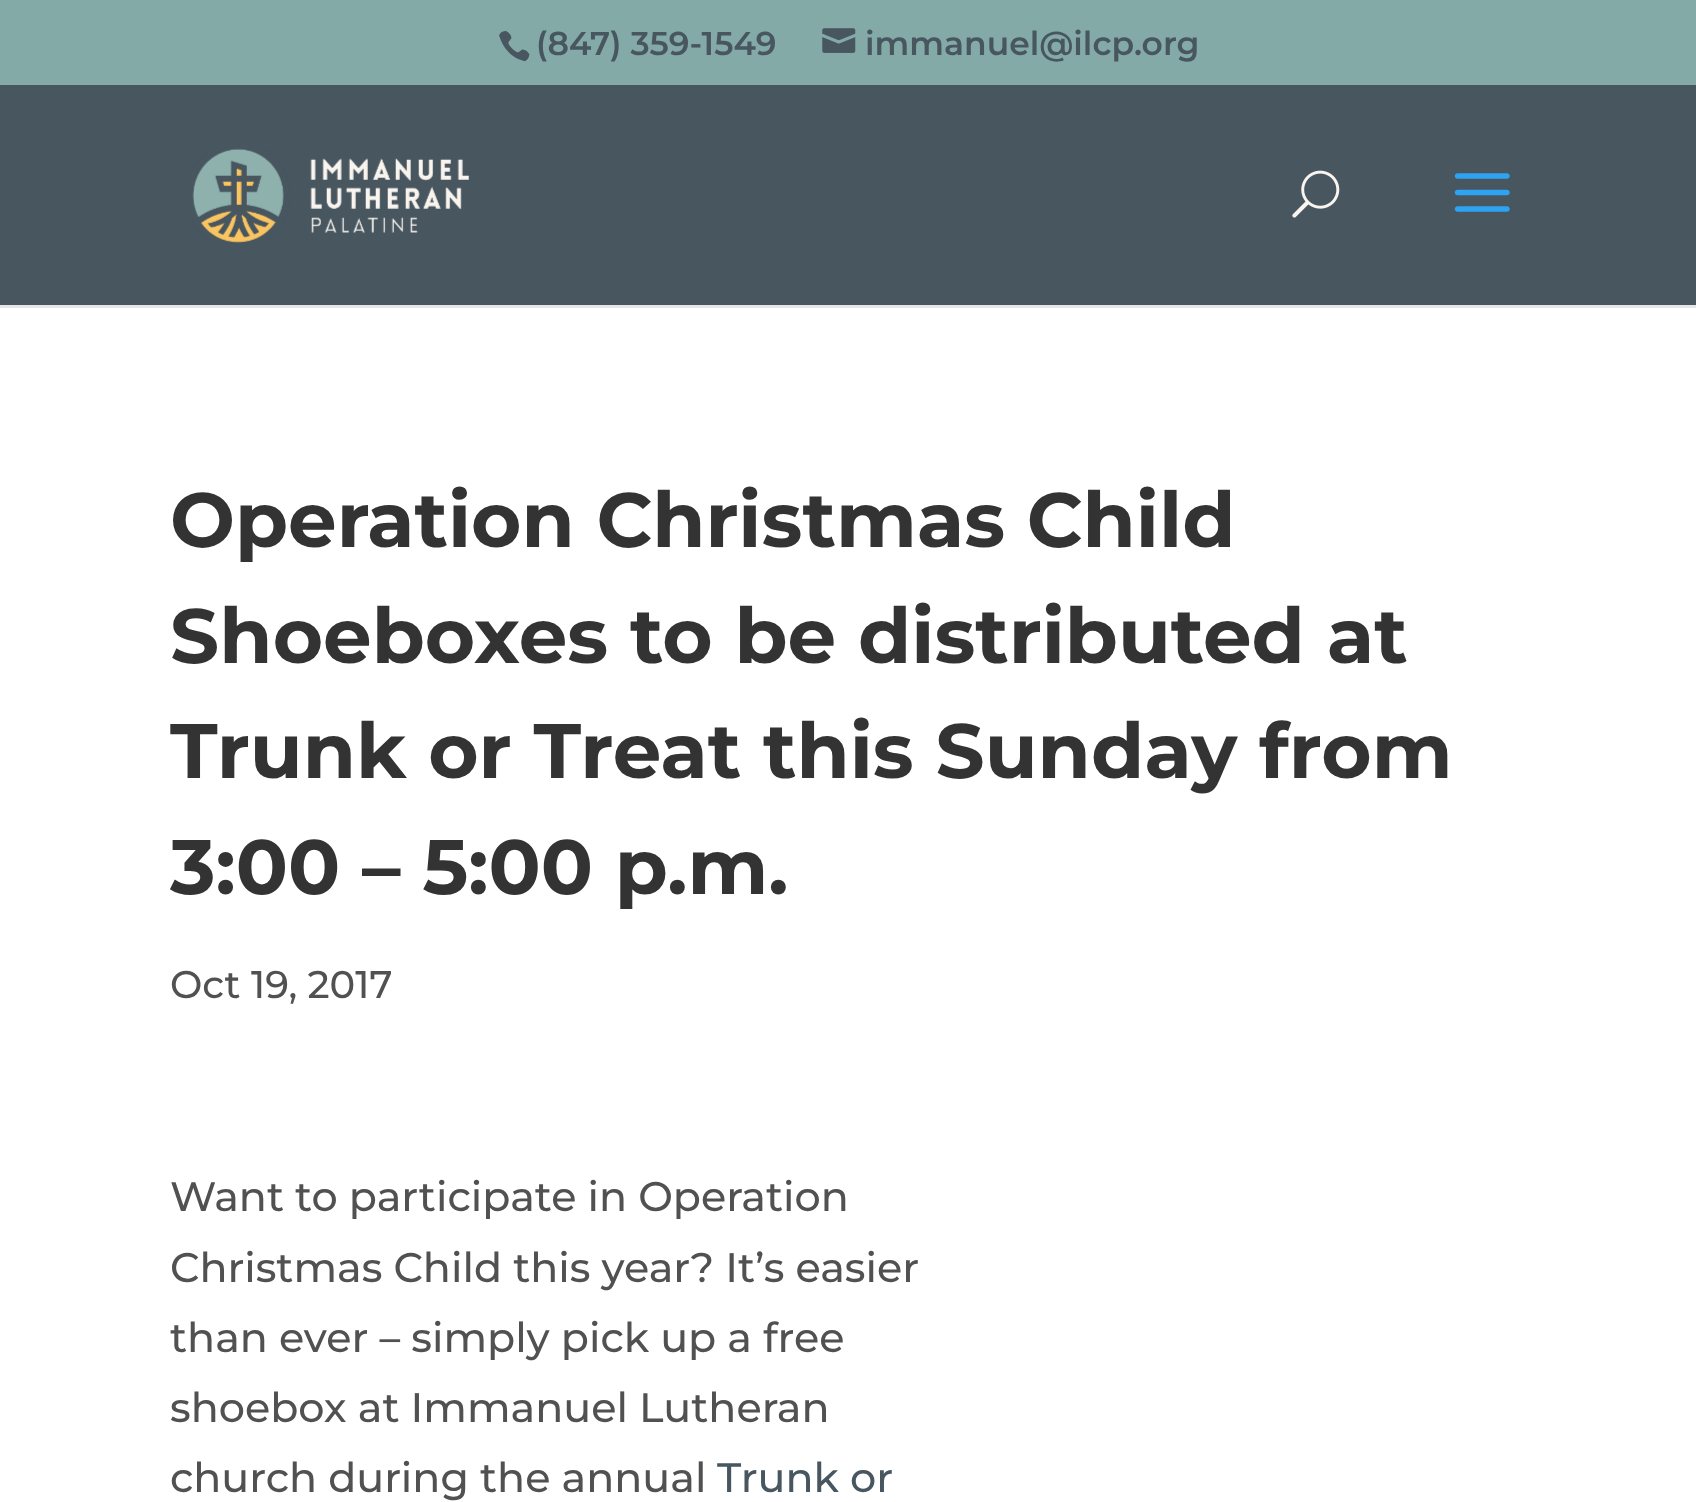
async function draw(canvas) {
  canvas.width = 1696;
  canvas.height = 1502;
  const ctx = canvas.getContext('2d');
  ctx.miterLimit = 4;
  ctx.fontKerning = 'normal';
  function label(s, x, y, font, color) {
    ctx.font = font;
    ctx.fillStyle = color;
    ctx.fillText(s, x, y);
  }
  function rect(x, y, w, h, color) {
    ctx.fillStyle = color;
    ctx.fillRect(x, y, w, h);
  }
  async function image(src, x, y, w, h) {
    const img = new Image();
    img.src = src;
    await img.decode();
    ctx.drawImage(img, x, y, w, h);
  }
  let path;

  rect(0, 0, 1696, 1502, '#fff');
  rect(0, 0, 1696, 85, '#84aaa7');
  await image('assets/img1.png', 499, 31, 31, 31);
  label('(847) 359-1549', 536, 55, '600 33px Montserrat', '#485660');
  await image('assets/img2.png', 822, 28, 34, 25);
  label('immanuel@ilcp.org', 865, 55, '600 33px Montserrat', '#485660');
  ctx.fillStyle = '#e6e6e6';
  path = new Path2D('M0 305V308H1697V88V305Z');
  ctx.fill(path);
  rect(0, 85, 1696, 220, '#485660');
  await image('assets/img3.png', 192, 148, 278, 95);
  await image('assets/img4.png', 1292, 170, 48, 48);
  await image('assets/img5.png', 1454, 173, 56, 39);
  label('Operation Christmas Child', 170, 547, 'bold 77px Montserrat', '#333');
  label('Shoeboxes to be distributed at', 170, 663, 'bold 77px Montserrat', '#333');
  label('Trunk or Treat this Sunday from', 170, 778, 'bold 77px Montserrat', '#333');
  label('3:00 – 5:00 p.m.', 170, 894, 'bold 77px Montserrat', '#333');
  label('Oct 19, 2017', 170, 998, '500 38.5px Montserrat', '#515151');
  label('Want to participate in Operation', 170, 1211, '500 41.25px Montserrat', '#515151');
  label('Christmas Child this year? It’s easier', 170, 1282, '500 41.25px Montserrat', '#515151');
  label('than ever – simply pick up a free', 170, 1352, '500 41.25px Montserrat', '#515151');
  label('shoebox at Immanuel Lutheran', 170, 1422, '500 41.25px Montserrat', '#515151');
  label('church during the annual', 170, 1492, '500 41.25px Montserrat', '#515151');
  label('Trunk or', 717, 1492, '500 41.25px Montserrat', '#485660');
}

draw(document.querySelector('canvas'));
